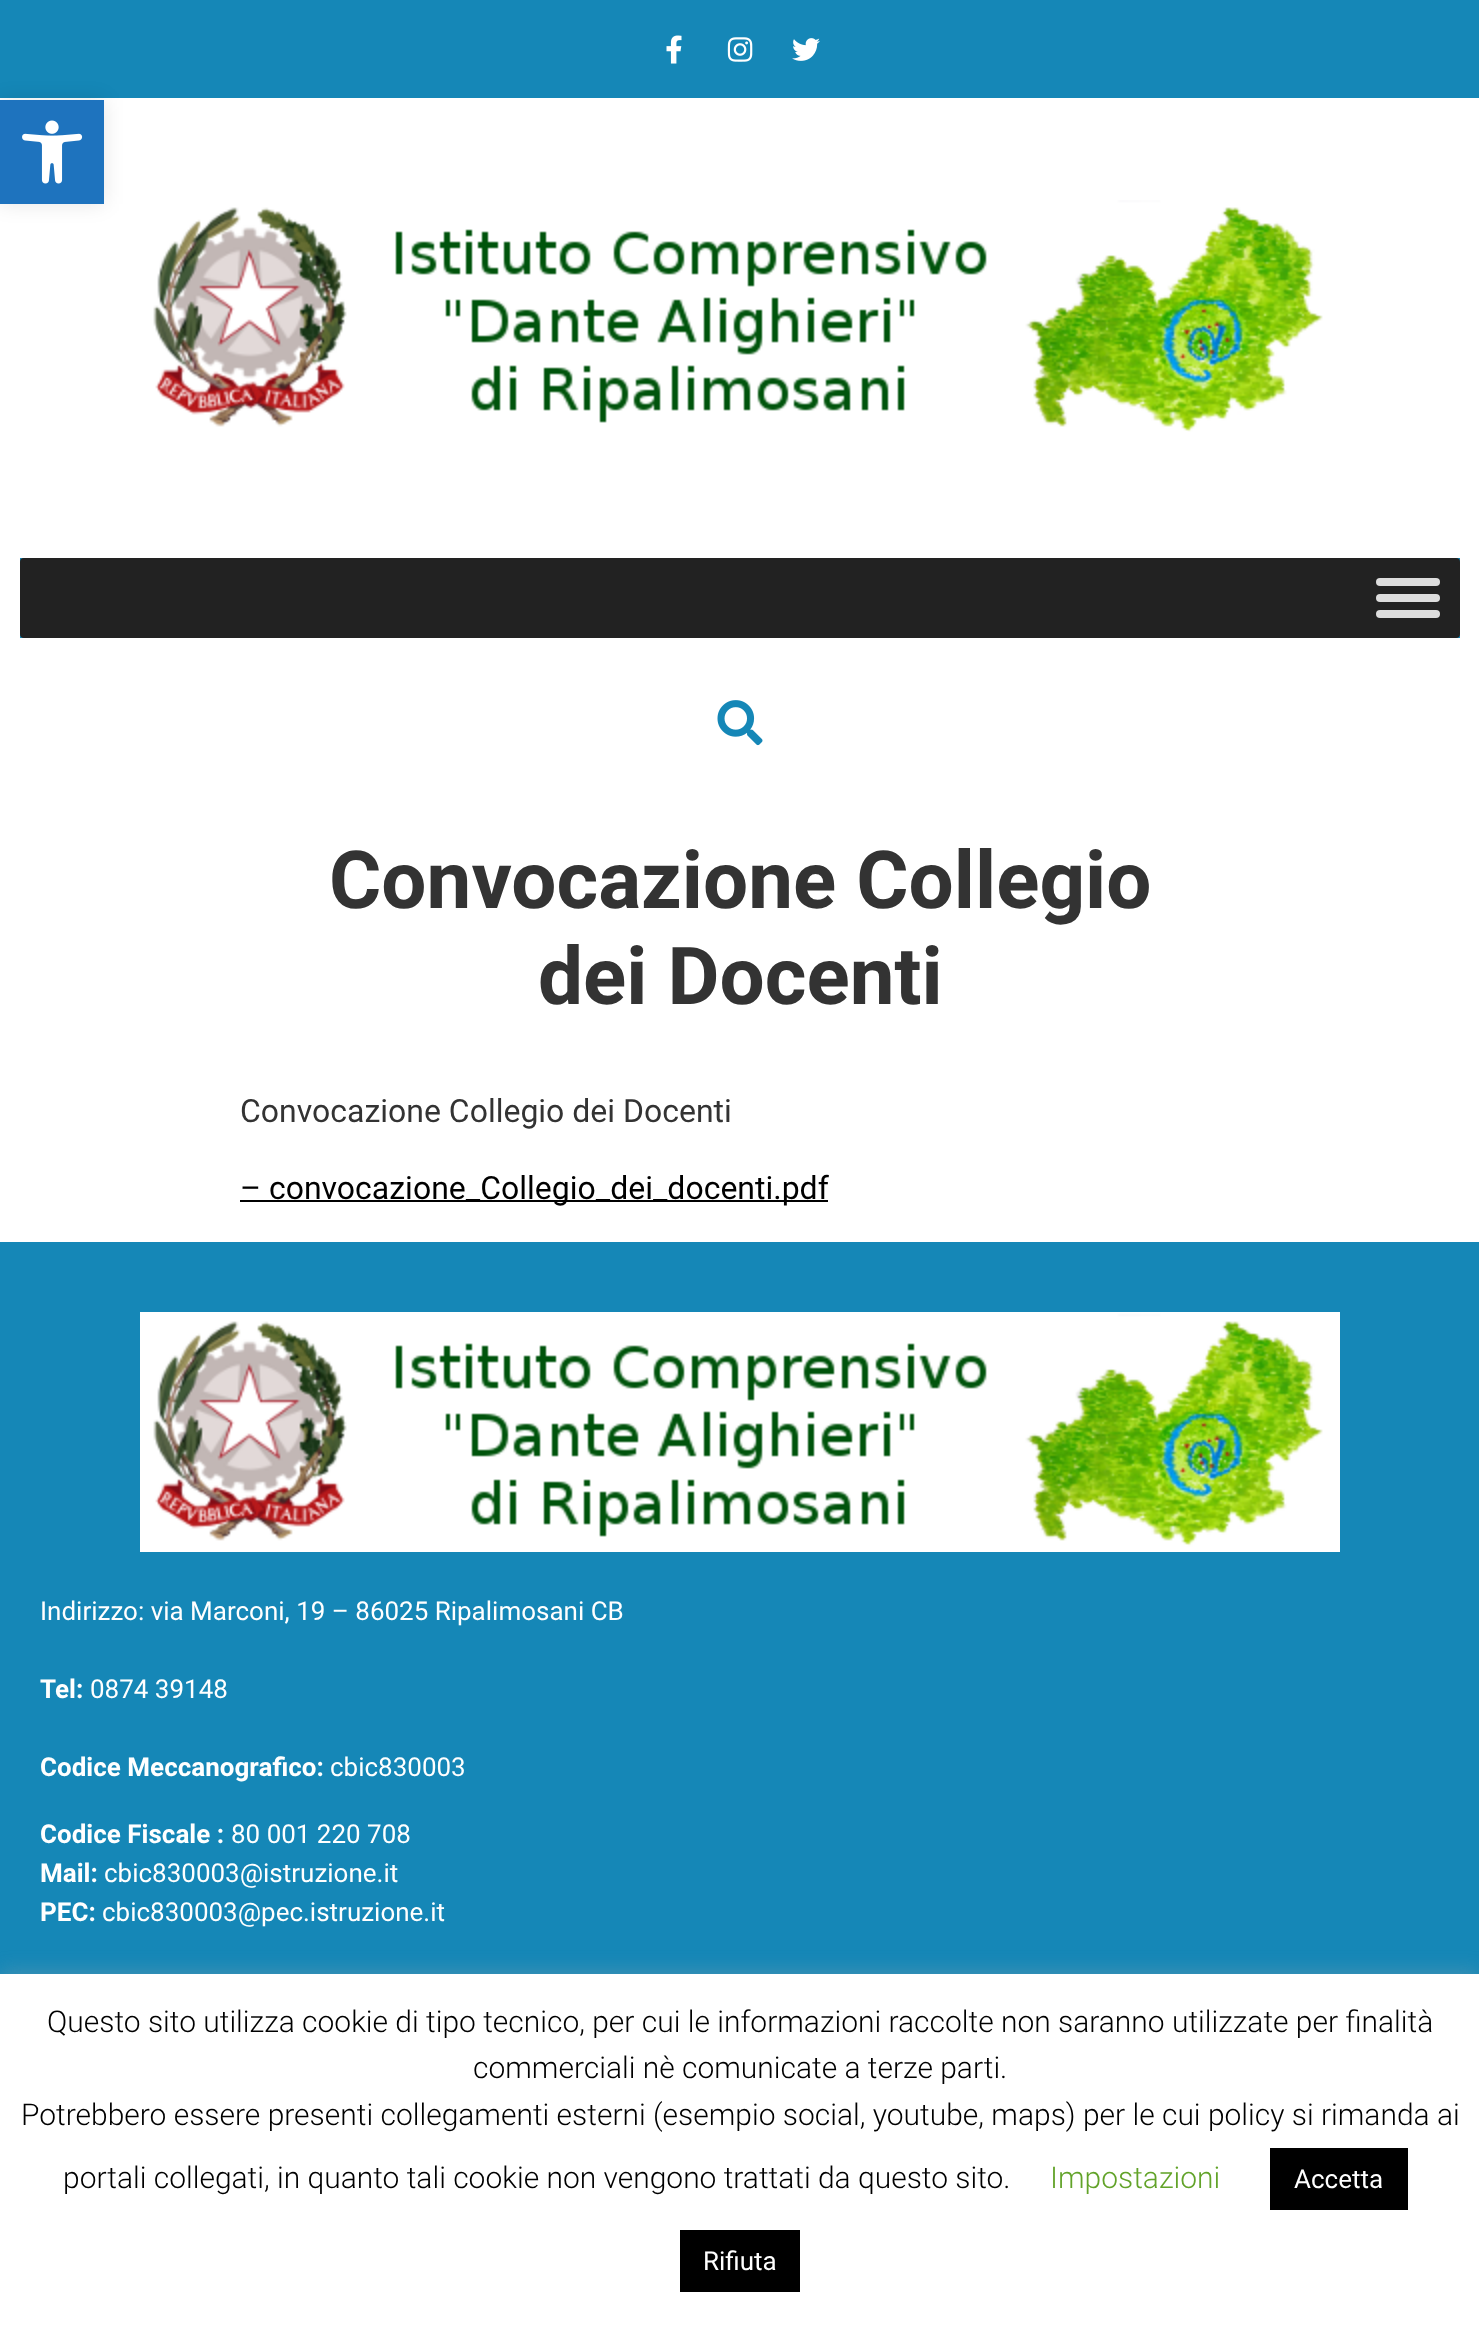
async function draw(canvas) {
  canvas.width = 1479;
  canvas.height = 2326;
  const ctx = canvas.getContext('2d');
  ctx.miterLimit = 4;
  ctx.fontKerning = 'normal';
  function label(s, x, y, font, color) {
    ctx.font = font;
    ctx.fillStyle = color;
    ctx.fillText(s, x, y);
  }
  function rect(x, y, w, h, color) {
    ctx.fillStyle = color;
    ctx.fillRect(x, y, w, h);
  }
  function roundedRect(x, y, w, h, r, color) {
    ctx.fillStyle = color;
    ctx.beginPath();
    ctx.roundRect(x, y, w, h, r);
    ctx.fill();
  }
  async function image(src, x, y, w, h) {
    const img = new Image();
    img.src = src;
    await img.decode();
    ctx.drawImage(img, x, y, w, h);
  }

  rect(0, 0, 1479, 2326, '#fff');
  rect(0, 0, 1479, 98, '#1587b7');
  await image('assets/img1.png', 666, 35, 16, 29);
  await image('assets/img2.png', 727, 37, 26, 25);
  await image('assets/img3.png', 792, 38, 28, 23);
  await image('assets/img4.png', 153, 200, 1170, 232);
  rect(20, 558, 1440, 80, '#1587b7');
  roundedRect(20, 558, 1440, 80, 4, '#222');
  roundedRect(1376, 578, 64, 8, 4, '#ddd');
  roundedRect(1376, 594, 64, 8, 4, '#ddd');
  roundedRect(1376, 610, 64, 8, 4, '#ddd');
  await image('assets/img5.png', 717, 700, 46, 46);
  ctx.fillStyle = '#0000001a';
  ctx.filter = 'blur(10px)';
  ctx.beginPath();
  ctx.rect(0, 100, 104, 104);
  ctx.fill();
  ctx.filter = 'none';
  rect(0, 100, 104, 104, '#1e73be');
  await image('assets/img6.png', 22, 120, 61, 64);
  label('Convocazione Collegio', 329, 908, 'bold 80px Roboto', '#333');
  label('dei Docenti', 538, 1004, 'bold 80px Roboto', '#333');
  label('Convocazione Collegio dei Docenti', 240, 1122, '32px Roboto', '#333');
  rect(240, 1200, 588, 2, '#000');
  label('– convocazione_Collegio_dei_docenti.pdf', 240, 1199, '32px Roboto', '#000');
  rect(0, 1242, 1479, 732, '#1587b7');
  await image('assets/img7.png', 140, 1312, 1200, 240);
  label('Indirizzo: via Marconi, 19 – 86025 Ripalimosani CB', 40, 1620, '26px Roboto', '#fff');
  label('Tel:', 40, 1698, 'bold 26px Roboto', '#fff');
  label('0874 39148', 90, 1698, '26px Roboto', '#fff');
  label('Codice Meccanografico:', 40, 1776, 'bold 26px Roboto', '#fff');
  label('cbic830003', 330, 1776, '26px Roboto', '#fff');
  label('Codice Fiscale :', 40, 1843, 'bold 26px Roboto', '#fff');
  label('80 001 220 708', 231, 1843, '26px Roboto', '#fff');
  label('Mail:', 40, 1882, 'bold 26px Roboto', '#fff');
  label('cbic830003@istruzione.it', 104, 1882, '26px Roboto', '#fff');
  label('PEC:', 40, 1921, 'bold 26px Roboto', '#fff');
  label('cbic830003@pec.istruzione.it', 102, 1921, '26px Roboto', '#fff');
  ctx.fillStyle = '#acabab4d';
  ctx.filter = 'blur(10px)';
  ctx.beginPath();
  ctx.rect(0, 1972, 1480, 352);
  ctx.fill();
  ctx.filter = 'none';
  rect(0, 1974, 1479, 352, '#fff');
  label('Questo sito utilizza cookie di tipo tecnico, per cui le informazioni raccolte non saranno utilizzate per finalità', 47, 2032, '300 30px Roboto', '#000');
  label('commerciali nè comunicate a terze parti.', 473, 2078, '300 30px Roboto', '#000');
  label('Potrebbero essere presenti collegamenti esterni (esempio social, youtube, maps) per le cui policy si rimanda ai', 21, 2125, '300 30px Roboto', '#000');
  label('portali collegati, in quanto tali cookie non vengono trattati da questo sito.', 63, 2188, '300 30px Roboto', '#000');
  label('Impostazioni', 1050, 2188, '300 30px Roboto', '#62a329');
  rect(1270, 2148, 138, 62, '#000');
  label('Accetta', 1294, 2188, '26px Roboto', '#fff');
  rect(680, 2230, 120, 62, '#000');
  label('Rifiuta', 703, 2270, '26px Roboto', '#fff');
}

draw(document.querySelector('canvas'));
